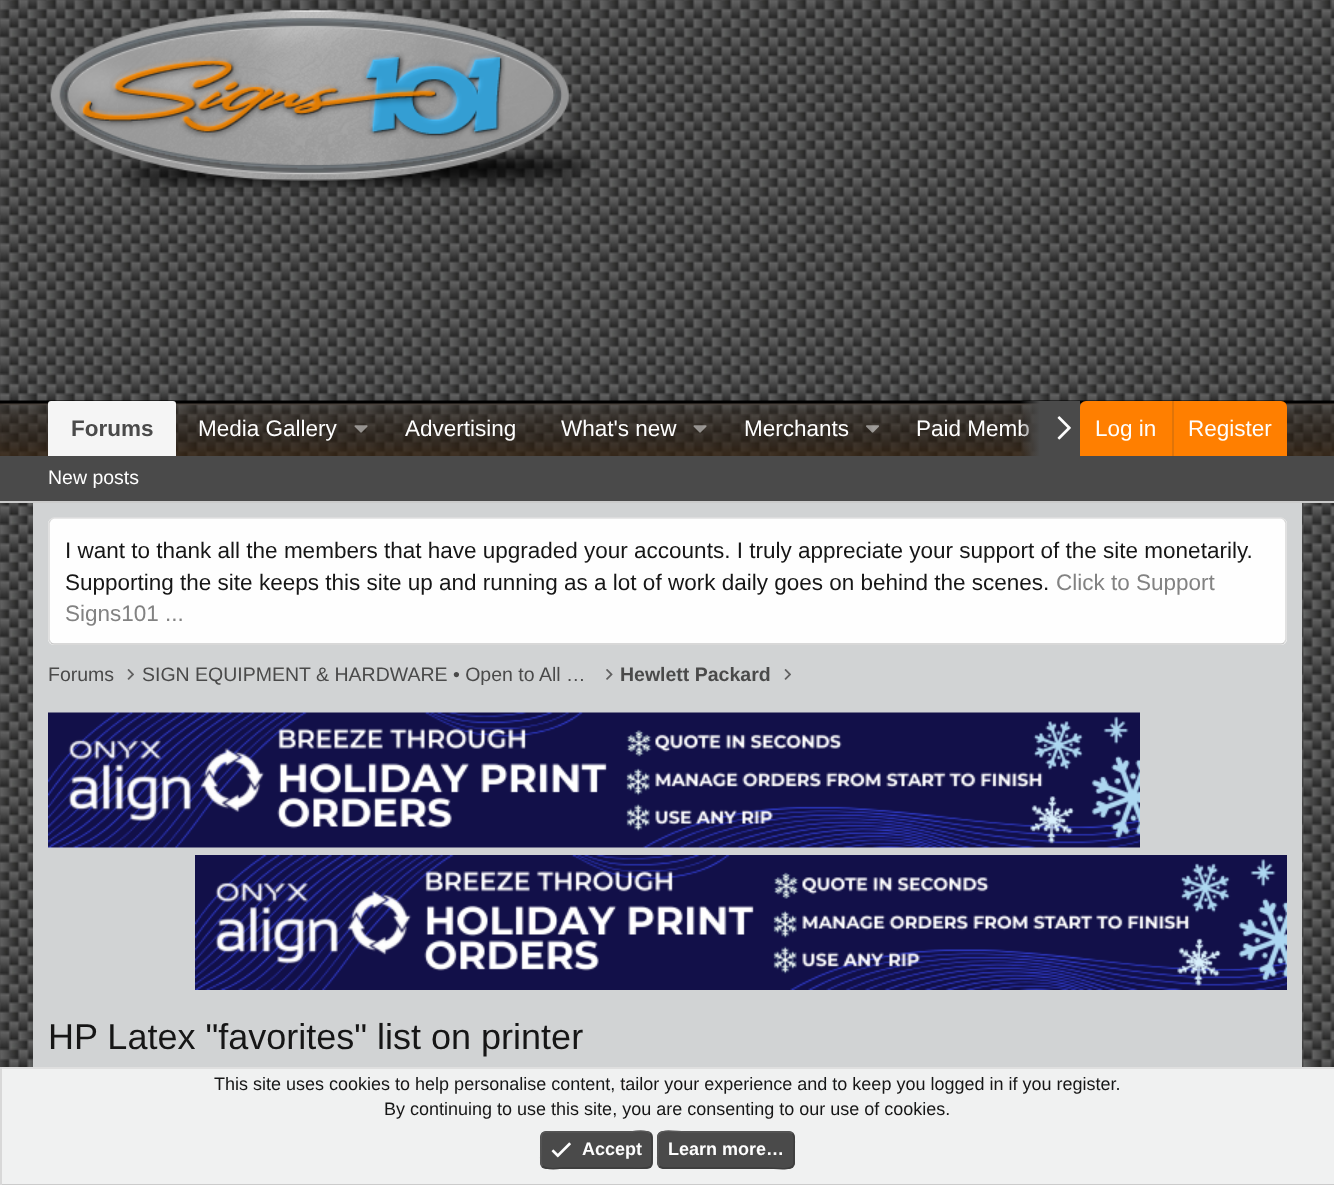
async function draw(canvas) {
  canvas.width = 1334;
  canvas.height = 1185;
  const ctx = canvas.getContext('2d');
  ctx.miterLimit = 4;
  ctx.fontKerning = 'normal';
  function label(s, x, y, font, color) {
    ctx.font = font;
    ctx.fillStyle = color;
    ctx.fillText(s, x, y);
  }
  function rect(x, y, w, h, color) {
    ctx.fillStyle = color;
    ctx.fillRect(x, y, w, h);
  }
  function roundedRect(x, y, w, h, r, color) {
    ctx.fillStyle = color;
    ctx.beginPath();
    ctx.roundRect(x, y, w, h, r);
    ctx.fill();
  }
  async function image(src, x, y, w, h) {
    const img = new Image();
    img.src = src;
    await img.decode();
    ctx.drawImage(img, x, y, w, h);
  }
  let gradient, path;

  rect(0, 0, 1334, 1185, '#fff');
  await image('assets/img1.png', 0, 400, 1334, 667);
  await image('assets/img2.png', 0, 0, 1334, 401);
  await image('assets/img3.png', 50, 10, 546, 182);
  await image('assets/img4.png', 0, 400, 1334, 56);
  ctx.fillStyle = '#f5f5f5';
  ctx.beginPath();
  ctx.roundRect(48, 401, 128, 55, [3, 3, 0, 0]);
  ctx.fill();
  label('Forums', 71, 436, 'bold 22.5px Liberation Sans', '#4a4a4a');
  label('Media Gallery', 198, 436, '22.5px Liberation Sans', '#fefefe');
  await image('assets/img5.png', 354, 425, 14, 8);
  label('Advertising', 405, 436, '22.5px Liberation Sans', '#fefefe');
  label('What\'s new', 561, 436, '22.5px Liberation Sans', '#fefefe');
  await image('assets/img6.png', 693, 425, 14, 8);
  label('Merchants', 744, 436, '22.5px Liberation Sans', '#fefefe');
  await image('assets/img7.png', 866, 425, 13, 8);
  label('Paid Memb', 916, 436, '22.5px Liberation Sans', '#fefefe');
  gradient = ctx.createLinearGradient(1020, 428, 1080, 428);
  gradient.addColorStop(0, '#4a4a4a00');
  gradient.addColorStop(0.33, '#4a4a4a');
  ctx.fillStyle = gradient;
  ctx.fillRect(1020, 401, 60, 55);
  await image('assets/img8.png', 1057, 416, 14, 24);
  ctx.fillStyle = '#ff7f00';
  ctx.beginPath();
  ctx.roundRect(1080, 401, 207, 55, [6, 6, 0, 0]);
  ctx.fill();
  label('Log in', 1095, 436, '22.5px Liberation Sans', '#fefefe');
  rect(1172, 401, 2, 55, '#e07408');
  label('Register', 1188, 436, '22.5px Liberation Sans', '#fefefe');
  rect(0, 456, 1334, 45, '#4a4a4a');
  rect(0, 501, 1334, 2, '#cbcbcb');
  label('New posts', 48, 484, '19.5px Liberation Sans', '#fefefe');
  rect(33, 503, 1269, 564, '#d1d3d4');
  roundedRect(48, 518, 1239, 127, 6, '#fefefe');
  path = new Path2D('M50.5 520C51.5 519 52.5 518 54 518H1281C1282.5 518 1283.5 519 1284.5 520');
  ctx.strokeStyle = '#dfdfdf';
  ctx.lineWidth = 1.5;
  ctx.stroke(path);
  path = new Path2D('M1284.5 520L1286 523V639.5L1284.5 642.5');
  ctx.strokeStyle = '#d8d8d8';
  ctx.stroke(path);
  path = new Path2D('M1284.5 642.5C1283.5 643.5 1282.5 644 1281 644H54C52.5 644 51.5 643.5 50.5 642.5');
  ctx.strokeStyle = '#cbcbcb';
  ctx.stroke(path);
  path = new Path2D('M50.5 642.5L49 639.5V523L50.5 520');
  ctx.strokeStyle = '#d8d8d8';
  ctx.stroke(path);
  label('I want to thank all the members that have upgraded your accounts. I truly appreciate your support of the site monetarily.', 65, 558, '22.5px Liberation Sans', '#161616');
  label('Supporting the site keeps this site up and running as a lot of work daily goes on behind the scenes.', 65, 590, '22.5px Liberation Sans', '#161616');
  label('Click to Support', 1056, 590, '22.5px Liberation Sans', '#828282');
  label('Signs101 ...', 65, 621, '22.5px Liberation Sans', '#828282');
  label('Forums', 48, 681, '19.5px Liberation Sans', '#4a4a4a');
  await image('assets/img9.png', 127, 669, 7, 11);
  label('SIGN EQUIPMENT & HARDWARE • Open to All …', 142, 681, '19.5px Liberation Sans', '#4a4a4a');
  await image('assets/img10.png', 606, 669, 7, 11);
  label('Hewlett Packard', 620, 681, 'bold 19.5px Liberation Sans', '#4a4a4a');
  await image('assets/img9.png', 784, 669, 7, 11);
  await image('assets/img11.png', 48, 712, 1092, 136);
  await image('assets/img12.png', 195, 855, 1092, 135);
  label('HP Latex "favorites" list on printer', 48, 1049, '36px Liberation Sans', '#161616');
  rect(2, 1069, 1332, 115, '#f0f1f1');
  rect(0, 1067, 1334, 2, '#dfdfdf');
  rect(0, 1184, 1334, 1, '#cbcbcb');
  rect(0, 1067, 2, 118, '#d8d8d8');
  label('This site uses cookies to help personalise content, tailor your experience and to keep you logged in if you register.', 214, 1090, '18px Liberation Sans', '#161616');
  label('By continuing to use this site, you are consenting to our use of cookies.', 384, 1115, '18px Liberation Sans', '#161616');
  roundedRect(540, 1131, 113, 38, 6, '#4a4a4a');
  path = new Path2D('M650 1133.5C653 1136 652 1146 652 1150C652 1171.5 653.5 1168 630 1168H563C562 1168 546.5 1170.5 542.5 1166');
  ctx.strokeStyle = '#3d3d3d';
  ctx.stroke(path);
  path = new Path2D('M542.5 1166C539.5 1163.5 541 1153.5 541 1150C541 1128 539 1132 563 1132H630C630.5 1132 646 1129 650 1133.5');
  ctx.strokeStyle = '#575757';
  ctx.stroke(path);
  await image('assets/img13.png', 551, 1142, 20, 16);
  label('Accept', 582, 1155, 'bold 18px Liberation Sans', '#fefefe');
  roundedRect(657, 1131, 138, 38, 6, '#4a4a4a');
  path = new Path2D('M792.5 1133.5C795.5 1136 794 1146 794 1150V1163.5C792.5 1171.5 775.5 1168 768 1168H663C661.5 1167.5 660.5 1167 659.5 1166');
  ctx.strokeStyle = '#3d3d3d';
  ctx.stroke(path);
  path = new Path2D('M659.5 1166C656.5 1163.5 658 1153.5 658 1150V1136C659.5 1128 676.5 1132 684 1132H789C790.5 1132 791.5 1132.5 792.5 1133.5');
  ctx.strokeStyle = '#575757';
  ctx.stroke(path);
  label('Learn more…', 668, 1155, 'bold 18px Liberation Sans', '#fefefe');
}

draw(document.querySelector('canvas'));
